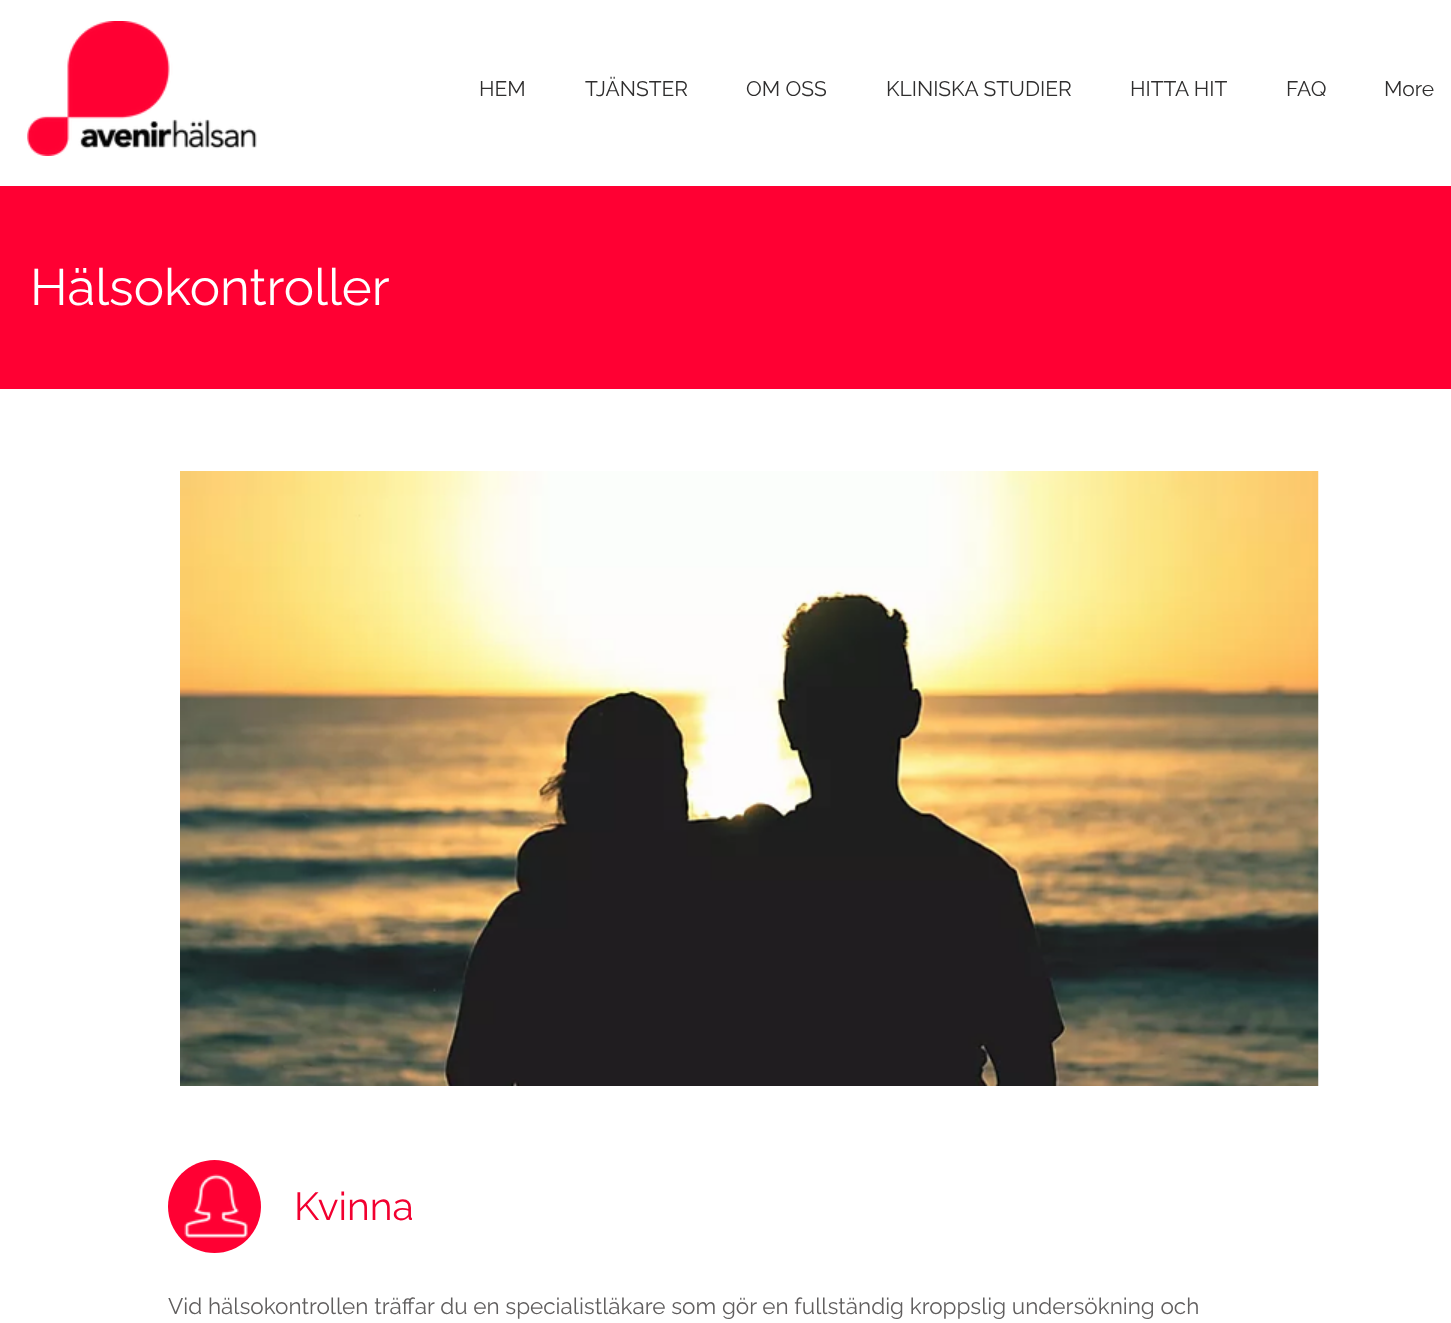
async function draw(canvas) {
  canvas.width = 1451;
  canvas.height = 1323;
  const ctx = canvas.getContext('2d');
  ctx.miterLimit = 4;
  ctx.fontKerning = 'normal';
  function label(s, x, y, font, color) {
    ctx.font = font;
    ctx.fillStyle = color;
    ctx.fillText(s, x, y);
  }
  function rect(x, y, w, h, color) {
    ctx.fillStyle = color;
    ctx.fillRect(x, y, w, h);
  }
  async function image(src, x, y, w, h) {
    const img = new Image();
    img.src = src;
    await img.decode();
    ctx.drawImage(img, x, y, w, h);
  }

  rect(0, 0, 1451, 1323, '#fff');
  await image('assets/img1.png', 27, 21, 230, 135);
  label('HEM', 479, 96, '21px Raleway', '#2f2e2e');
  label('TJÄNSTER', 585, 96, '21px Raleway', '#2f2e2e');
  label('OM OSS', 746, 96, '21px Raleway', '#2f2e2e');
  label('KLINISKA STUDIER', 886, 96, '21px Raleway', '#2f2e2e');
  label('HITTA HIT', 1130, 96, '21px Raleway', '#2f2e2e');
  label('FAQ', 1286, 96, '21px Raleway', '#2f2e2e');
  label('More', 1384, 96, '21px Raleway', '#2f2e2e');
  rect(0, 186, 1451, 203, '#f03');
  label('Hälsokontroller', 30, 305, '51px Raleway', '#fff');
  await image('assets/img2.png', 180, 471, 1139, 615);
  ctx.fillStyle = '#f03';
  ctx.beginPath();
  ctx.arc(214.5, 1206.5, 46.5, 0, 2 * Math.PI);
  ctx.fill();
  await image('assets/img3.png', 184, 1174, 64, 64);
  label('Kvinna', 294, 1220, '39px Raleway', '#f20030');
  label('Vid hälsokontrollen träffar du en specialistläkare som gör en fullständig kroppslig undersökning och', 168, 1314, '22.5px Raleway', '#605e5e');
}

draw(document.querySelector('canvas'));
